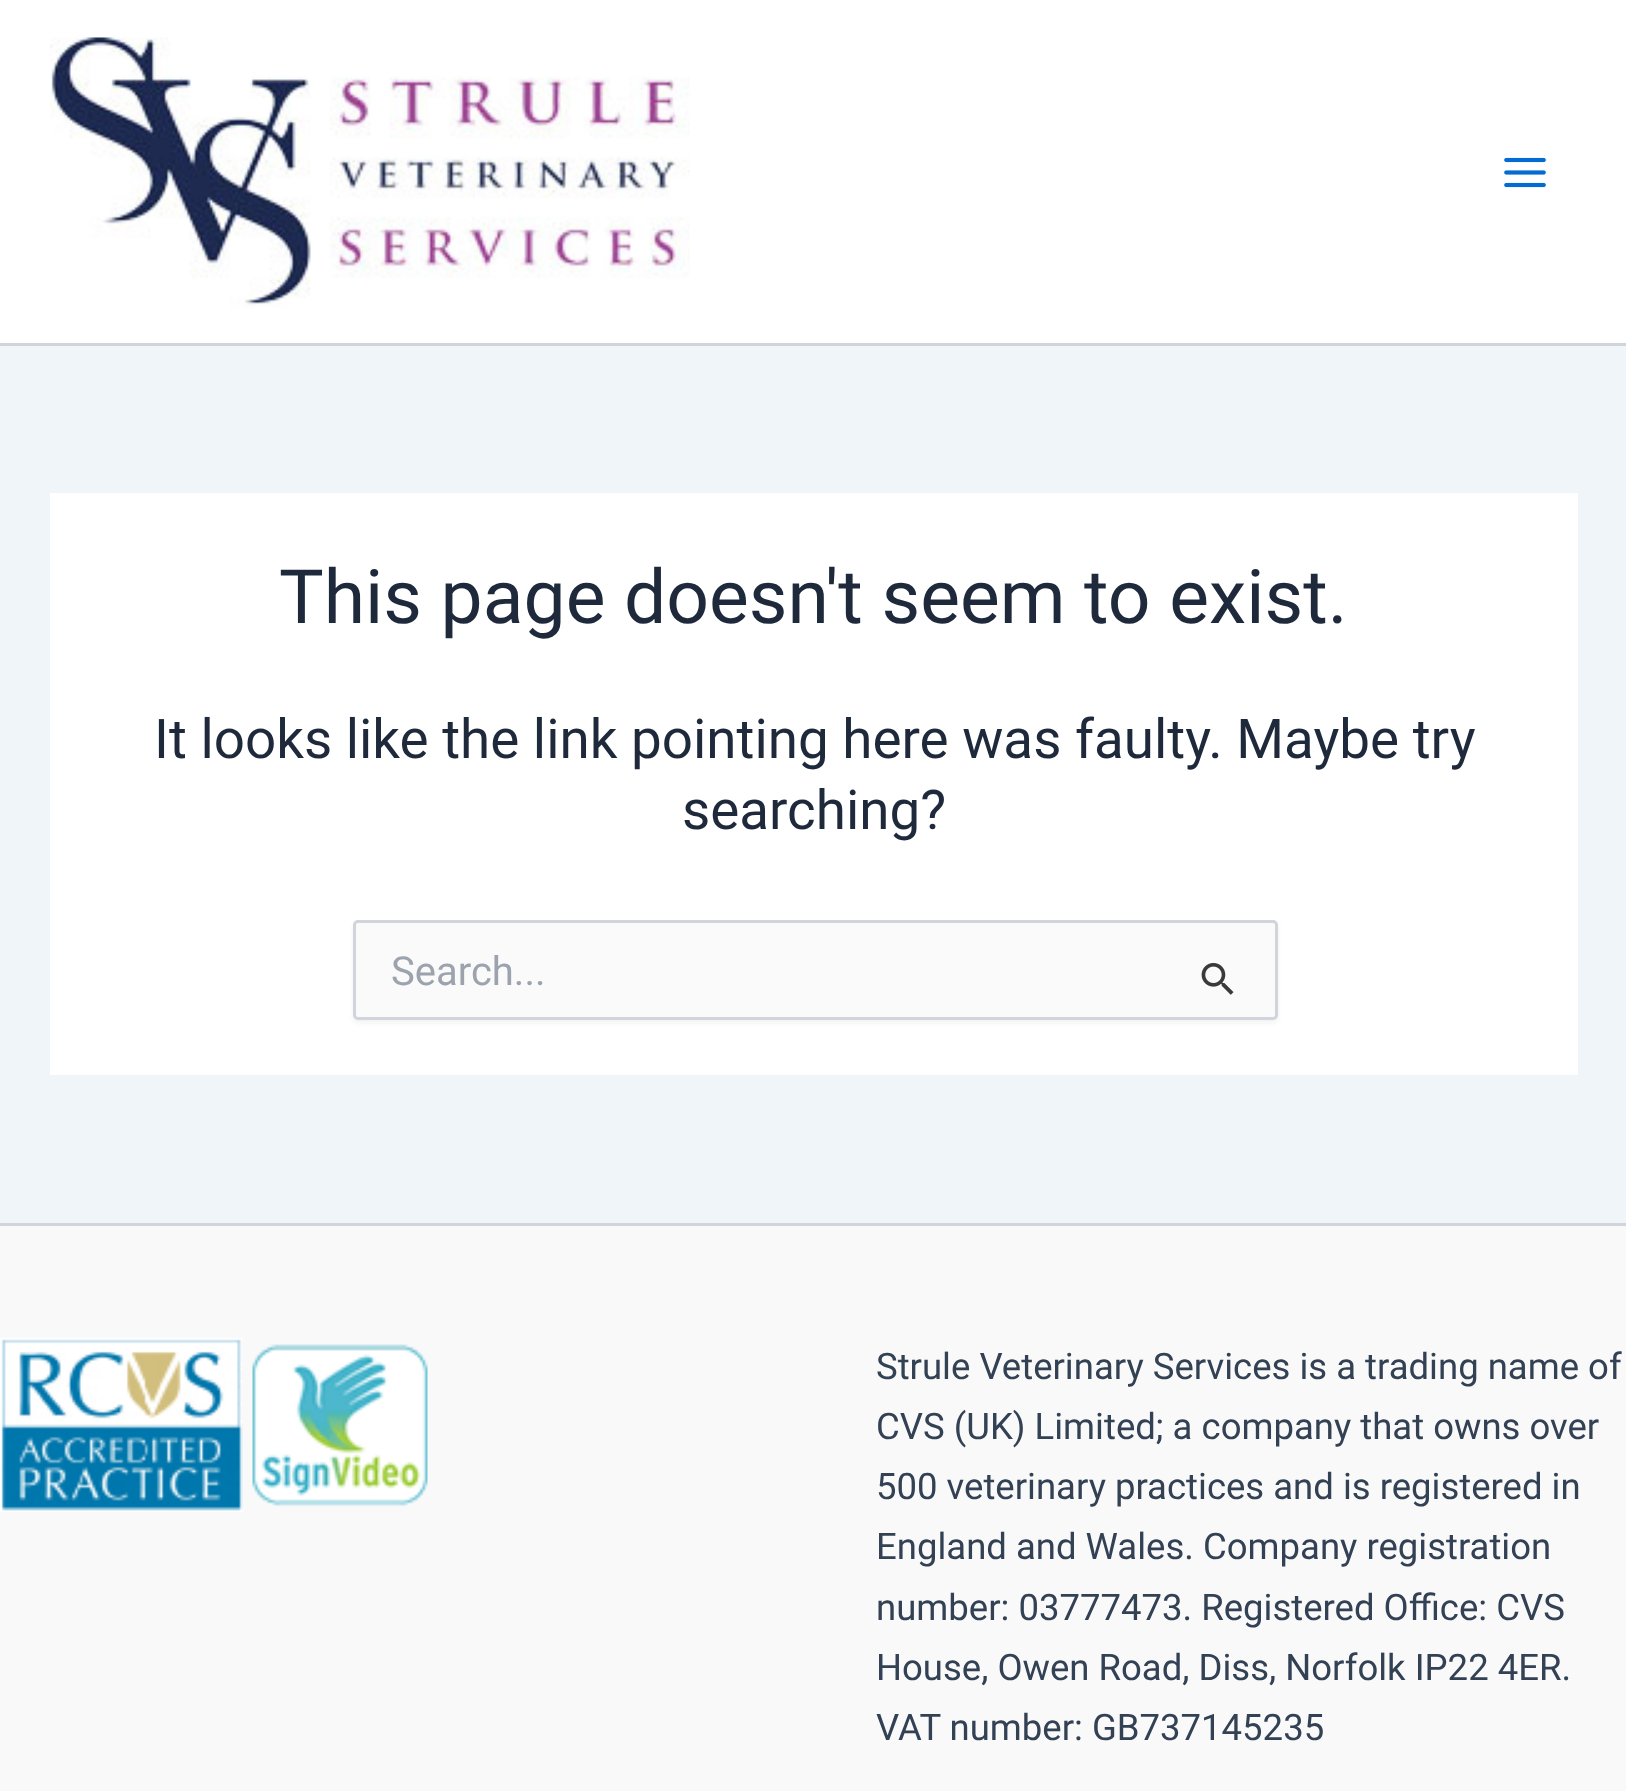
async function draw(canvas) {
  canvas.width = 1626;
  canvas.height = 1791;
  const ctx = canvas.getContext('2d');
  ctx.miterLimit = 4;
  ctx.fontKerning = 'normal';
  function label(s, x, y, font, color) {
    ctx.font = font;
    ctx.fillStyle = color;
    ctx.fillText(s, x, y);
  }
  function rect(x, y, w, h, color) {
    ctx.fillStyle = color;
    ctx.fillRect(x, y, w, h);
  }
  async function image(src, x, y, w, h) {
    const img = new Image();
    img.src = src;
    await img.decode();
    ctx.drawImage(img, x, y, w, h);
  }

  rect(0, 0, 1626, 1791, '#f0f5fa');
  rect(0, 0, 1626, 343, '#fff');
  rect(0, 343, 1626, 3, '#d1d5db');
  await image('assets/img1.png', 50, 37, 640, 271);
  await image('assets/img2.png', 1504, 157, 42, 31);
  rect(50, 493, 1528, 582, '#fff');
  label('This page doesn\'t seem to exist.', 279, 623, '75px Roboto', '#1e293b');
  label('It looks like the link pointing here was faulty. Maybe try', 154, 758, '54.75px Roboto', '#1e293b');
  label('searching?', 682, 829, '54.75px Roboto', '#1e293b');
  ctx.fillStyle = '#0000000d';
  ctx.filter = 'blur(2.5px)';
  ctx.beginPath();
  ctx.roundRect(353, 923, 925, 100, 5);
  ctx.fill();
  ctx.filter = 'none';
  ctx.fillStyle = '#fafafa';
  ctx.beginPath();
  ctx.roundRect(354.5, 921.5, 922, 97, 3.5);
  ctx.fill();
  ctx.strokeStyle = '#d1d5db';
  ctx.lineWidth = 3;
  ctx.stroke();
  label('Search...', 391, 985, '40px Roboto', '#9ca3af');
  await image('assets/img3.png', 1201, 962, 33, 33);
  rect(0, 1226, 1626, 565, '#f9f9f9');
  rect(0, 1223, 1626, 3, '#d1d5db');
  await image('assets/img4.png', 0, 1338, 243, 174);
  await image('assets/img5.png', 252, 1344, 176, 163);
  label('Strule Veterinary Services is a trading name of', 876, 1379, '36.5px Roboto', '#334155');
  label('CVS (UK) Limited; a company that owns over', 876, 1439, '36.5px Roboto', '#334155');
  label('500 veterinary practices and is registered in', 876, 1499, '36.5px Roboto', '#334155');
  label('England and Wales. Company registration', 876, 1559, '36.5px Roboto', '#334155');
  label('number: 03777473. Registered Office: CVS', 876, 1620, '36.5px Roboto', '#334155');
  label('House, Owen Road, Diss, Norfolk IP22 4ER.', 876, 1680, '36.5px Roboto', '#334155');
  label('VAT number: GB737145235', 876, 1740, '36.5px Roboto', '#334155');
}

draw(document.querySelector('canvas'));
